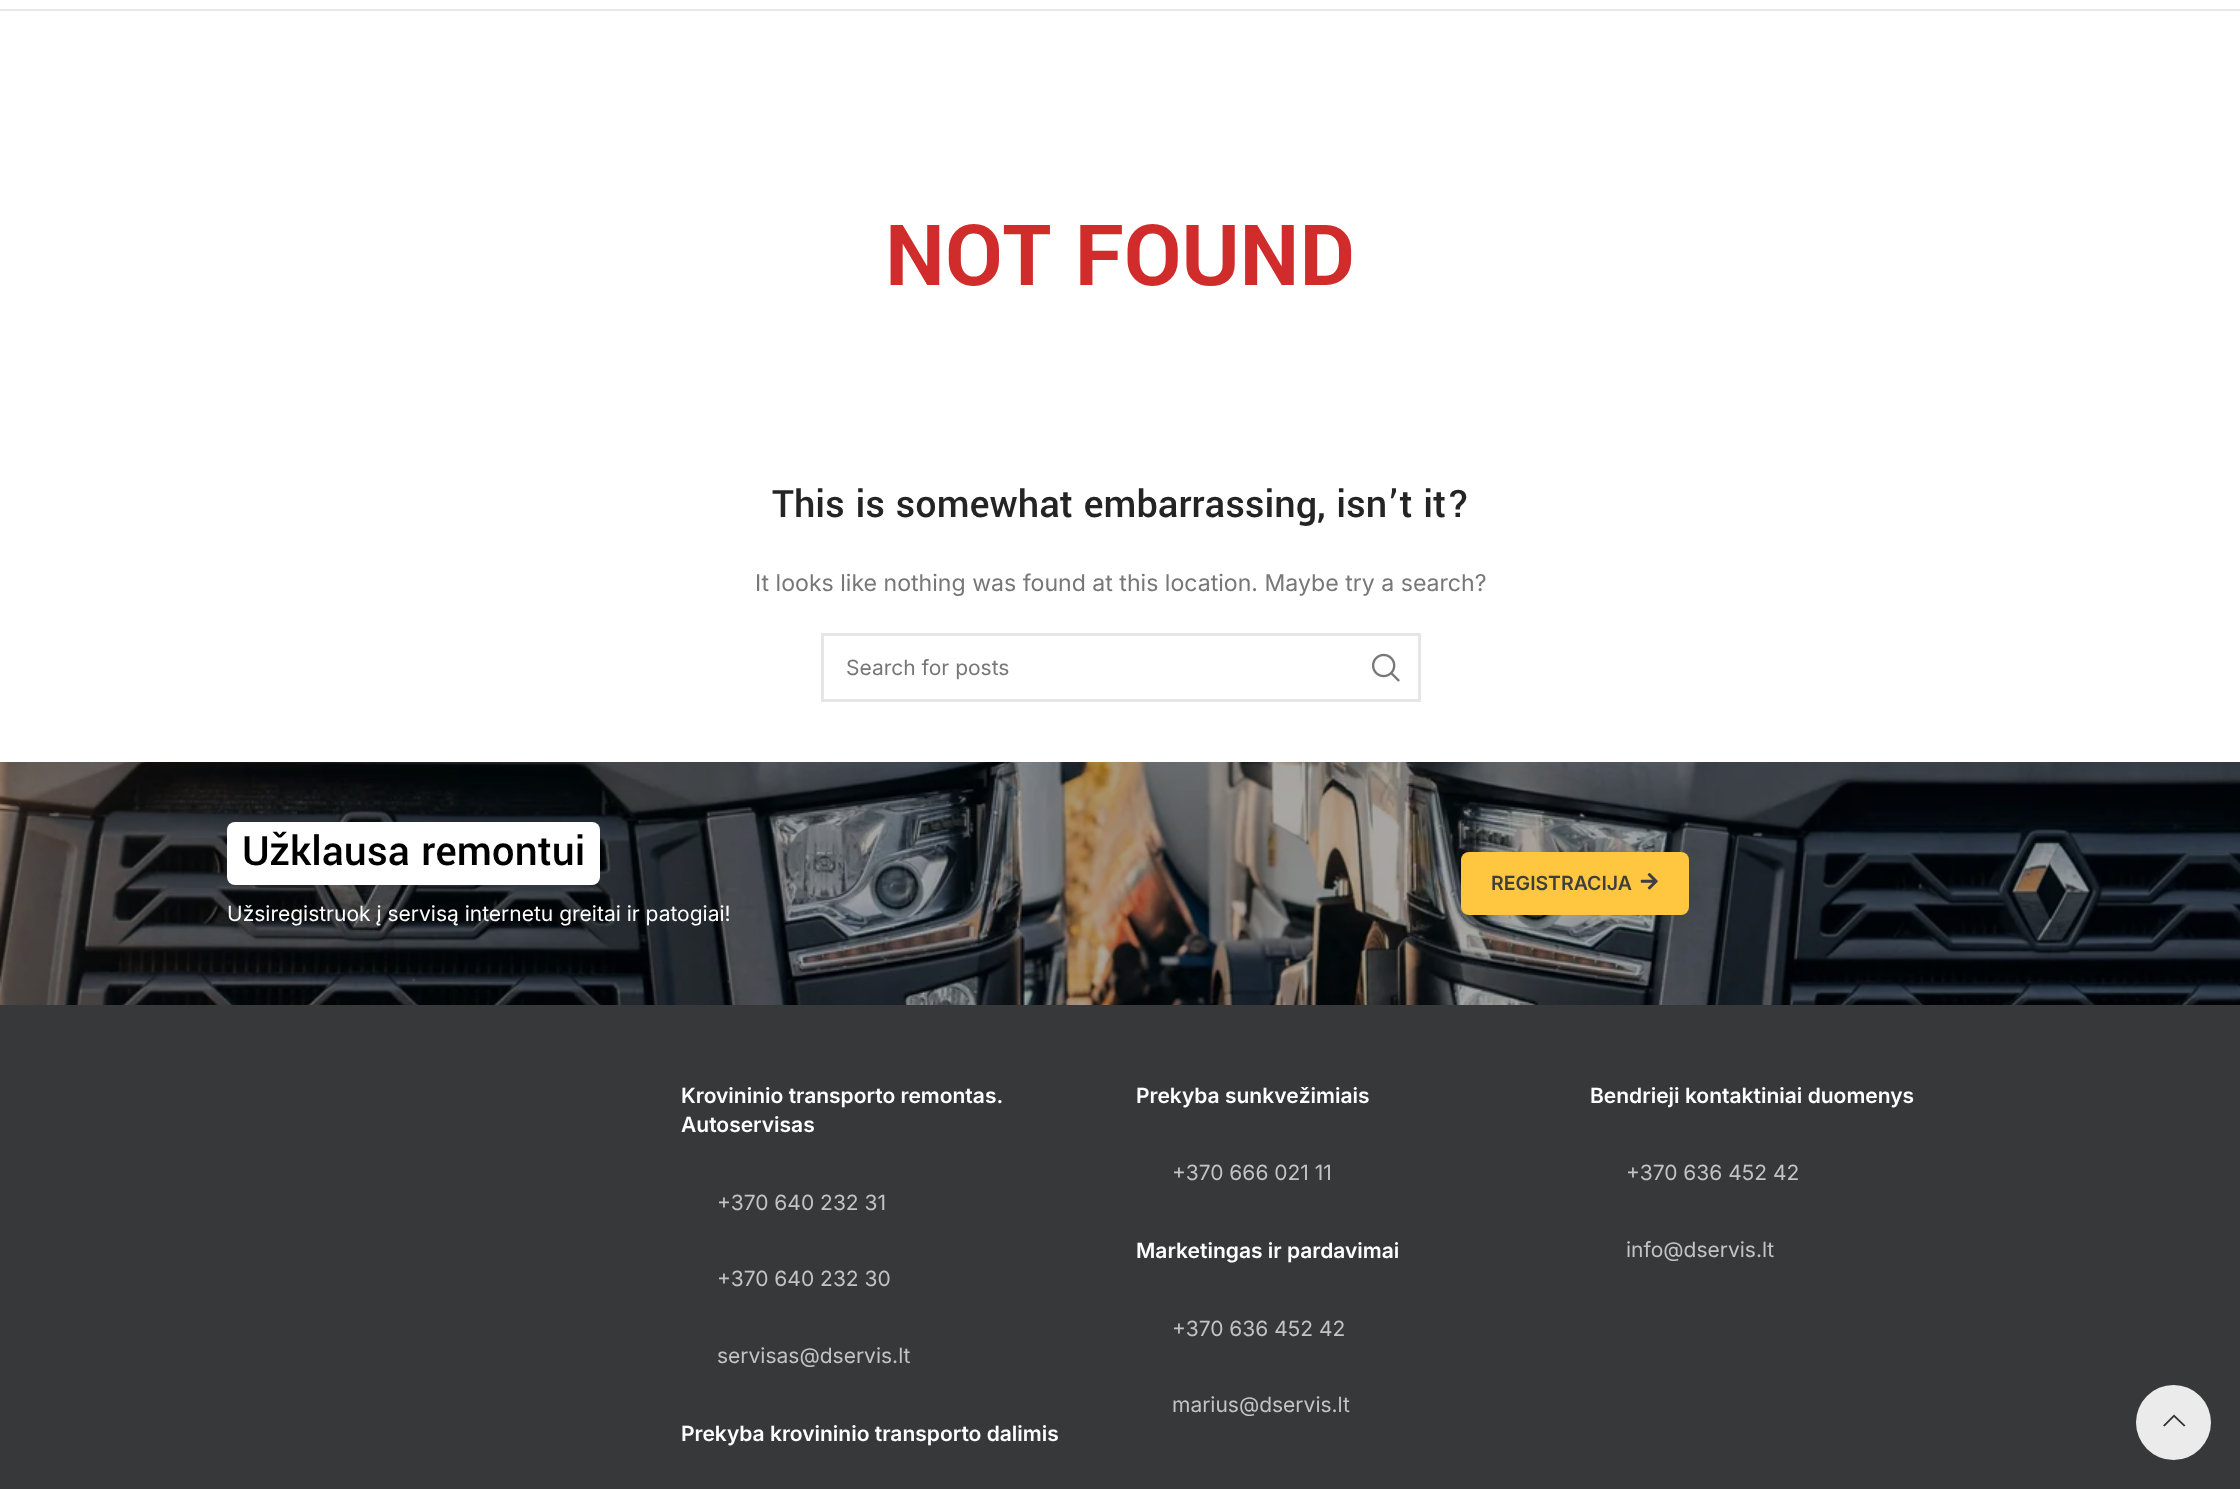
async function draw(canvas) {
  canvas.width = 2240;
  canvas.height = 1489;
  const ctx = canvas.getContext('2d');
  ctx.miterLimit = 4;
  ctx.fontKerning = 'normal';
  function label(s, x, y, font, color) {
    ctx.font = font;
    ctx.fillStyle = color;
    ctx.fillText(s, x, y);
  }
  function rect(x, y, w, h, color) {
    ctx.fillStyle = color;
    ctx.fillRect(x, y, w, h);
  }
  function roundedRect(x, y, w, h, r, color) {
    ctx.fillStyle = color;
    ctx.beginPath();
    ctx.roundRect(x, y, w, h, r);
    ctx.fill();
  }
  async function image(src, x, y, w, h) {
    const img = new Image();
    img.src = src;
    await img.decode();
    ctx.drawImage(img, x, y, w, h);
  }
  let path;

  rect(0, 0, 2240, 1489, '#fff');
  rect(0, 9, 2240, 2, '#e8e8e8');
  label('NOT FOUND', 885, 285, 'bold 94px Yantramanav', '#d12c2c');
  label('This is somewhat embarrassing, isn’t it?', 772, 517, '500 42px Yantramanav', '#242424');
  label('It looks like nothing was found at this location. Maybe try a search?', 755, 591, '23.1px Inter', '#777');
  ctx.strokeStyle = '#e6e6e6';
  ctx.lineWidth = 3;
  ctx.strokeRect(822.5, 634.5, 597, 66);
  label('Search for posts', 846, 675, '21px Inter', '#777');
  await image('assets/img1.png', 1371, 653, 29, 29);
  await image('assets/img2.png', 0, 762, 2240, 243);
  roundedRect(227, 822, 373, 63, 8, '#fff');
  label('Užklausa remontui', 242, 865, '500 45px Yantramanav', '#000');
  label('Užsiregistruok į servisą internetu greitai ir patogiai!', 227, 921, '21px Inter', '#fff');
  roundedRect(1461, 852, 228, 63, 8, '#fec73f');
  label('REGISTRACIJA', 1491, 890, '600 19.5px Inter', '#3e3e3e');
  await image('assets/img3.png', 1640, 873, 18, 17);
  rect(0, 1005, 2240, 484, '#373839');
  label('Krovininio transporto remontas.', 681, 1103, '600 21px Inter', '#fff');
  label('Autoservisas', 681, 1132, '600 21px Inter', '#fff');
  label('+370 640 232 31', 717, 1210, '21px Inter', '#c3c3c4');
  label('+370 640 232 30', 717, 1286, '21px Inter', '#c3c3c4');
  label('servisas@dservis.lt', 717, 1363, '21px Inter', '#c3c3c4');
  label('Prekyba krovininio transporto dalimis', 681, 1441, '600 21px Inter', '#fff');
  label('Prekyba sunkvežimiais', 1136, 1103, '600 21px Inter', '#fff');
  label('+370 666 021 11', 1172, 1180, '21px Inter', '#c3c3c4');
  label('Marketingas ir pardavimai', 1136, 1258, '600 21px Inter', '#fff');
  label('+370 636 452 42', 1172, 1336, '21px Inter', '#c3c3c4');
  label('marius@dservis.lt', 1172, 1412, '21px Inter', '#c3c3c4');
  label('Bendrieji kontaktiniai duomenys', 1590, 1103, '600 21px Inter', '#fff');
  label('+370 636 452 42', 1626, 1180, '21px Inter', '#c3c3c4');
  label('info@dservis.lt', 1626, 1257, '21px Inter', '#c3c3c4');
  ctx.fillStyle = '#ffffffe6';
  ctx.beginPath();
  ctx.arc(2173.5, 1422.5, 37.5, 0, 2 * Math.PI);
  ctx.fill();
  ctx.fillStyle = '#333';
  path = new Path2D('M2184 1426.5L2185.5 1425.5L2174 1414.5L2163 1425.5L2164.5 1426.5L2174 1417Z');
  ctx.fill(path);
}

draw(document.querySelector('canvas'));
